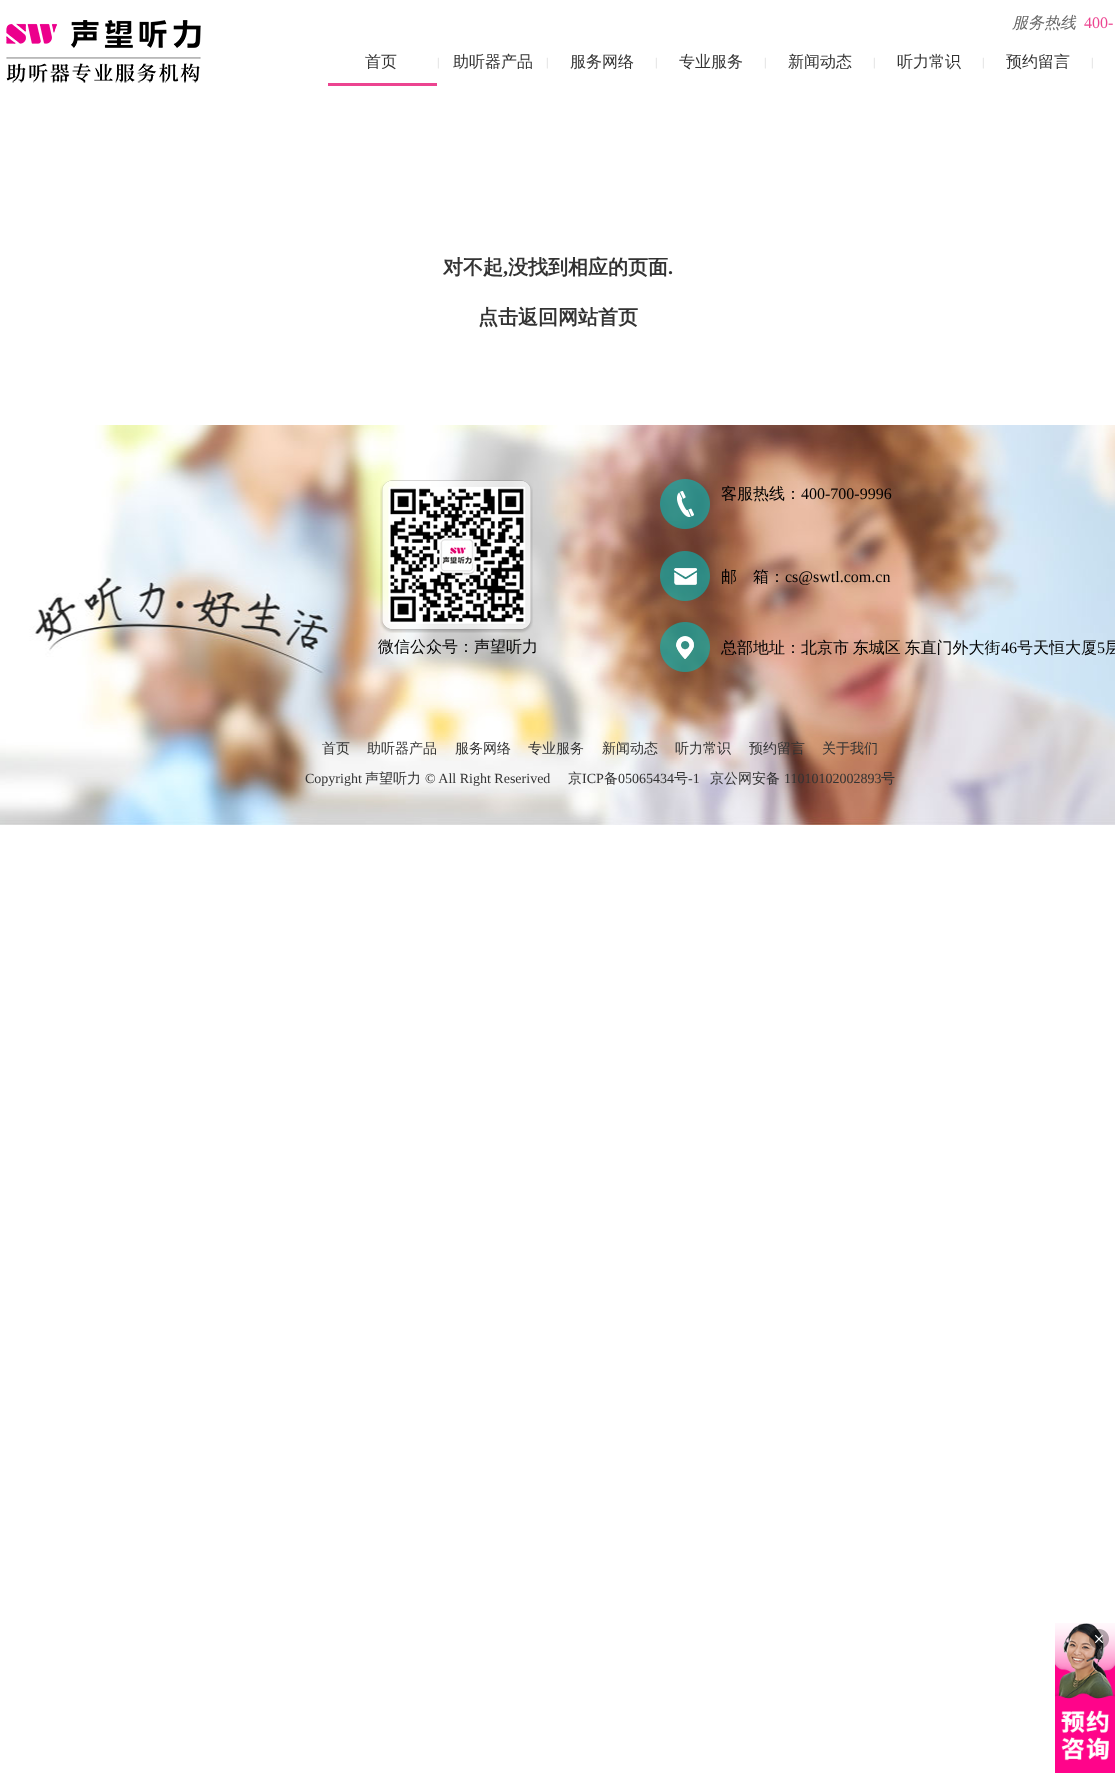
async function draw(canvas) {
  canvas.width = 1115;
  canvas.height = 1777;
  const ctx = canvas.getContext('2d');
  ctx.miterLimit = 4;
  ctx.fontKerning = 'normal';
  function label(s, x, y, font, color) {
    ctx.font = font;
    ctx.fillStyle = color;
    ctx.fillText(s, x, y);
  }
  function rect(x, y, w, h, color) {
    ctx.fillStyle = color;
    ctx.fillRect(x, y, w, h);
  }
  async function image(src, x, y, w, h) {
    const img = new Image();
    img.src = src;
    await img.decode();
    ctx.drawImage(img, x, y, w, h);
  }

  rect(0, 0, 1115, 1777, '#fff');
  await image('assets/img1.png', 6, 20, 195, 63);
  label('服务热线', 1012, 28, 'italic 500 16px WenQuanYi Zen Hei', '#686868');
  label('400-', 1084, 28, '16px Liberation Serif', '#ec4490');
  label('首页', 365, 67, '500 16px WenQuanYi Zen Hei', '#333');
  rect(328, 83, 109, 3, '#ec4490');
  label('|', 437, 66, '12px Liberation Serif', '#d4d4d4');
  label('助听器产品', 453, 67, '500 16px WenQuanYi Zen Hei', '#333');
  label('|', 546, 66, '12px Liberation Serif', '#d4d4d4');
  label('服务网络', 570, 67, '500 16px WenQuanYi Zen Hei', '#333');
  label('|', 655, 66, '12px Liberation Serif', '#d4d4d4');
  label('专业服务', 679, 67, '500 16px WenQuanYi Zen Hei', '#333');
  label('|', 764, 66, '12px Liberation Serif', '#d4d4d4');
  label('新闻动态', 788, 67, '500 16px WenQuanYi Zen Hei', '#333');
  label('|', 873, 66, '12px Liberation Serif', '#d4d4d4');
  label('听力常识', 897, 67, '500 16px WenQuanYi Zen Hei', '#333');
  label('|', 982, 66, '12px Liberation Serif', '#d4d4d4');
  label('预约留言', 1006, 67, '500 16px WenQuanYi Zen Hei', '#333');
  label('|', 1091, 66, '12px Liberation Serif', '#d4d4d4');
  label('对不起', 443, 274, 'bold 20px WenQuanYi Zen Hei', '#333');
  label(',', 503, 274, 'bold 20px Liberation Serif', '#333');
  label('没找到相应的页面', 508, 274, 'bold 20px WenQuanYi Zen Hei', '#333');
  label('.', 668, 274, 'bold 20px Liberation Serif', '#333');
  label('点击返回网站首页', 478, 324, 'bold 20px WenQuanYi Zen Hei', '#333');
  await image('assets/img2.png', 0, 425, 1115, 400);
  await image('assets/img3.png', 380, 480, 153, 153);
  label('微信公众号：声望听力', 378, 652, '500 16px WenQuanYi Zen Hei', '#000');
  await image('assets/img4.png', 660, 479, 50, 50);
  label('客服热线：', 721, 499, '500 16px WenQuanYi Zen Hei', '#000');
  label('400-700-9996', 801, 499, '16px Liberation Serif', '#000');
  await image('assets/img5.png', 660, 551, 50, 50);
  label('邮', 721, 582, '500 16px WenQuanYi Zen Hei', '#000');
  label('箱：', 753, 582, '500 16px WenQuanYi Zen Hei', '#000');
  label('cs@swtl.com.cn', 785, 582, '16px Liberation Serif', '#000');
  await image('assets/img6.png', 660, 622, 50, 50);
  ctx.wordSpacing = '-1px';
  label('总部地址：北京市 东城区 东直门外大街', 721, 653, '500 16px WenQuanYi Zen Hei', '#000');
  ctx.wordSpacing = '0px';
  label('46', 1001, 653, '16px Liberation Serif', '#000');
  label('号天恒大厦', 1017, 653, '500 16px WenQuanYi Zen Hei', '#000');
  label('5', 1097, 653, '16px Liberation Serif', '#000');
  label('层', 1105, 653, '500 16px WenQuanYi Zen Hei', '#000');
  label('首页', 322, 753, '500 14px WenQuanYi Zen Hei', '#333');
  label('助听器产品', 367, 753, '500 14px WenQuanYi Zen Hei', '#333');
  label('服务网络', 455, 753, '500 14px WenQuanYi Zen Hei', '#333');
  label('专业服务', 528, 753, '500 14px WenQuanYi Zen Hei', '#333');
  label('新闻动态', 602, 753, '500 14px WenQuanYi Zen Hei', '#333');
  label('听力常识', 675, 753, '500 14px WenQuanYi Zen Hei', '#333');
  label('预约留言', 749, 753, '500 14px WenQuanYi Zen Hei', '#333');
  label('关于我们', 822, 753, '500 14px WenQuanYi Zen Hei', '#333');
  label('Copyright', 305, 783, '14px Liberation Serif', '#333');
  label('声望听力', 365, 783, '500 14px WenQuanYi Zen Hei', '#333');
  label('© All Right Reserived', 425, 783, '14px Liberation Serif', '#333');
  label('京', 568, 783, '500 14px WenQuanYi Zen Hei', '#333');
  label('ICP', 582, 783, '14px Liberation Serif', '#333');
  label('备', 604, 783, '500 14px WenQuanYi Zen Hei', '#333');
  label('05065434', 618, 783, '14px Liberation Serif', '#333');
  label('号', 674, 783, '500 14px WenQuanYi Zen Hei', '#333');
  label('-1', 688, 783, '14px Liberation Serif', '#333');
  label('京公网安备', 710, 783, '500 14px WenQuanYi Zen Hei', '#333');
  label('11010102002893', 784, 783, '14px Liberation Serif', '#333');
  label('号', 881, 783, '500 14px WenQuanYi Zen Hei', '#333');
  await image('assets/img7.png', 1055, 1623, 60, 150);
  await image('assets/img8.png', 1089, 1629, 20, 20);
}

draw(document.querySelector('canvas'));
